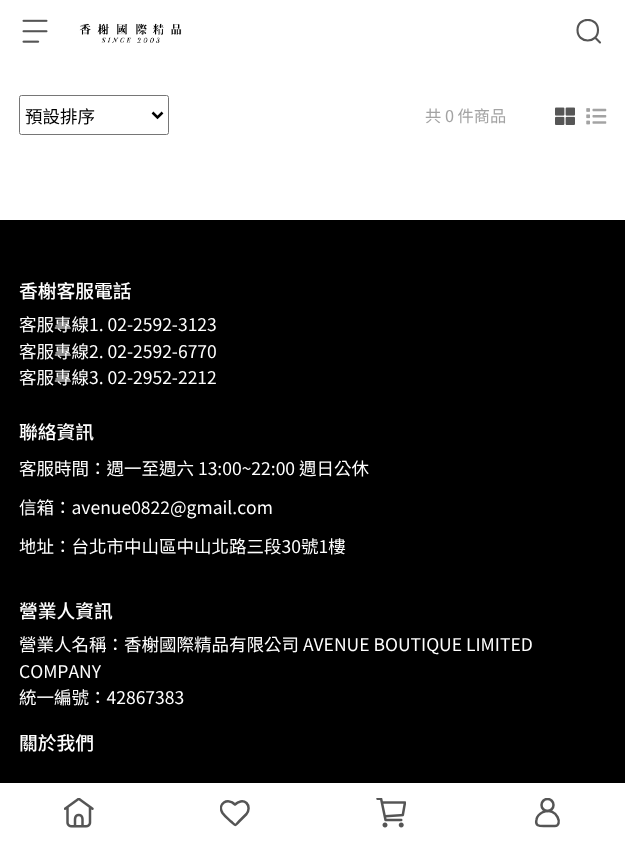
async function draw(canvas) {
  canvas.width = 625;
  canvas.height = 842;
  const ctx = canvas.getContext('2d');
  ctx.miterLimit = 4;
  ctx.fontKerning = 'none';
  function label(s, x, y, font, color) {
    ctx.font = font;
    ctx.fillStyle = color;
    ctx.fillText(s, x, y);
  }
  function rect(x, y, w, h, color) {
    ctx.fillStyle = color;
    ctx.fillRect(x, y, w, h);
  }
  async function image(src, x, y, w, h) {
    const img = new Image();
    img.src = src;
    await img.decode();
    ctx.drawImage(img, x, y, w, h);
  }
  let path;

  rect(0, 0, 625, 842, '#fff');
  await image('assets/img1.png', 22, 19, 26, 24);
  await image('assets/img2.png', 79, 23, 103, 20);
  ctx.save();
  ctx.beginPath();
  ctx.rect(573, 19, 32, 25);
  ctx.clip();
  path = new Path2D('M598 30C598 44 577.5 44 577.5 30C577.5 16.5 598 16.5 598 30Z');
  ctx.strokeStyle = '#555';
  ctx.lineWidth = 2.1;
  ctx.lineCap = 'round';
  ctx.lineJoin = 'round';
  ctx.stroke(path);
  ctx.restore();
  path = new Path2D('M596 38.5L600 42.5');
  ctx.strokeStyle = '#555';
  ctx.lineWidth = 2.1;
  ctx.lineCap = 'round';
  ctx.lineJoin = 'round';
  ctx.stroke(path);
  rect(0, 220, 625, 563, '#000');
  ctx.fillStyle = '#00000033';
  ctx.filter = 'blur(6px)';
  ctx.beginPath();
  ctx.rect(0, 783, 625, 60);
  ctx.fill();
  ctx.filter = 'none';
  rect(0, 783, 625, 59, '#fff');
  await image('assets/img3.png', 64, 798, 30, 30);
  ctx.save();
  ctx.beginPath();
  ctx.rect(220, 798, 30, 30);
  ctx.clip();
  path = new Path2D('M246.5 803C243 800 238 801.5 235 804.5C227.5 797 217 804 222.5 813C225 816.5 228.5 819 231 821.5C236.5 826.5 234.5 826 240.5 820L246.5 814C249 811 249.5 806 246.5 803Z');
  ctx.lineWidth = 2.5;
  ctx.stroke(path);
  ctx.restore();
  await image('assets/img4.png', 376, 798, 30, 30);
  ctx.save();
  ctx.beginPath();
  ctx.rect(533, 798, 30, 30);
  ctx.clip();
  ctx.beginPath();
  ctx.arc(547.5, 805, 6, 0, 2 * Math.PI);
  ctx.lineWidth = 2.5;
  ctx.stroke();
  ctx.restore();
  path = new Path2D('M554.5 826H545C539.5 826 535 826.5 536.5 819.5C537 816 540 813.5 543 812C557.5 806.5 563.5 826.5 554.5 826Z');
  ctx.lineWidth = 2.5;
  ctx.lineCap = 'butt';
  ctx.lineJoin = 'miter';
  ctx.stroke(path);
  ctx.beginPath();
  ctx.roundRect(19.5, 95.5, 149, 39, 2);
  ctx.strokeStyle = '#767676';
  ctx.lineWidth = 1;
  ctx.stroke();
  path = new Path2D('M152.5 112.5L157.5 117.5L162.5 112.5');
  ctx.strokeStyle = '#000';
  ctx.lineWidth = 2.5;
  ctx.stroke(path);
  label('預設排序', 25, 123, '17.5px Noto Sans TC', '#000');
  label('共 0 件商品', 425, 122, '16.25px Noto Sans TC', '#a3a3a3');
  await image('assets/img5.png', 555, 107, 20, 18);
  await image('assets/img6.png', 586, 108, 21, 17);
  label('香榭客服電話', 19, 298, '500 18.75px Noto Sans TC', '#fff');
  label('客服專線1. 02-2592-3123', 19, 331, '17.5px Noto Sans TC', '#fff');
  label('客服專線2. 02-2592-6770', 19, 358, '17.5px Noto Sans TC', '#fff');
  label('客服專線3. 02-2952-2212', 19, 384, '17.5px Noto Sans TC', '#fff');
  label('聯絡資訊', 19, 439, '500 18.75px Noto Sans TC', '#fff');
  label('客服時間：週一至週六 13:00~22:00 週日公休', 19, 475, '17.5px Noto Sans TC', '#fff');
  label('信箱：avenue0822@gmail.com', 19, 514, '17.5px Noto Sans TC', '#fff');
  label('地址：台北市中山區中山北路三段30號1樓', 19, 553, '17.5px Noto Sans TC', '#fff');
  label('營業人資訊', 19, 618, '500 18.75px Noto Sans TC', '#fff');
  label('營業人名稱：香榭國際精品有限公司 AVENUE BOUTIQUE LIMITED', 19, 651, '17.5px Noto Sans TC', '#fff');
  label('COMPANY', 19, 678, '17.5px Noto Sans TC', '#fff');
  label('統一編號：42867383', 19, 704, '17.5px Noto Sans TC', '#fff');
  label('關於我們', 19, 750, '500 18.75px Noto Sans TC', '#fff');
}

draw(document.querySelector('canvas'));
